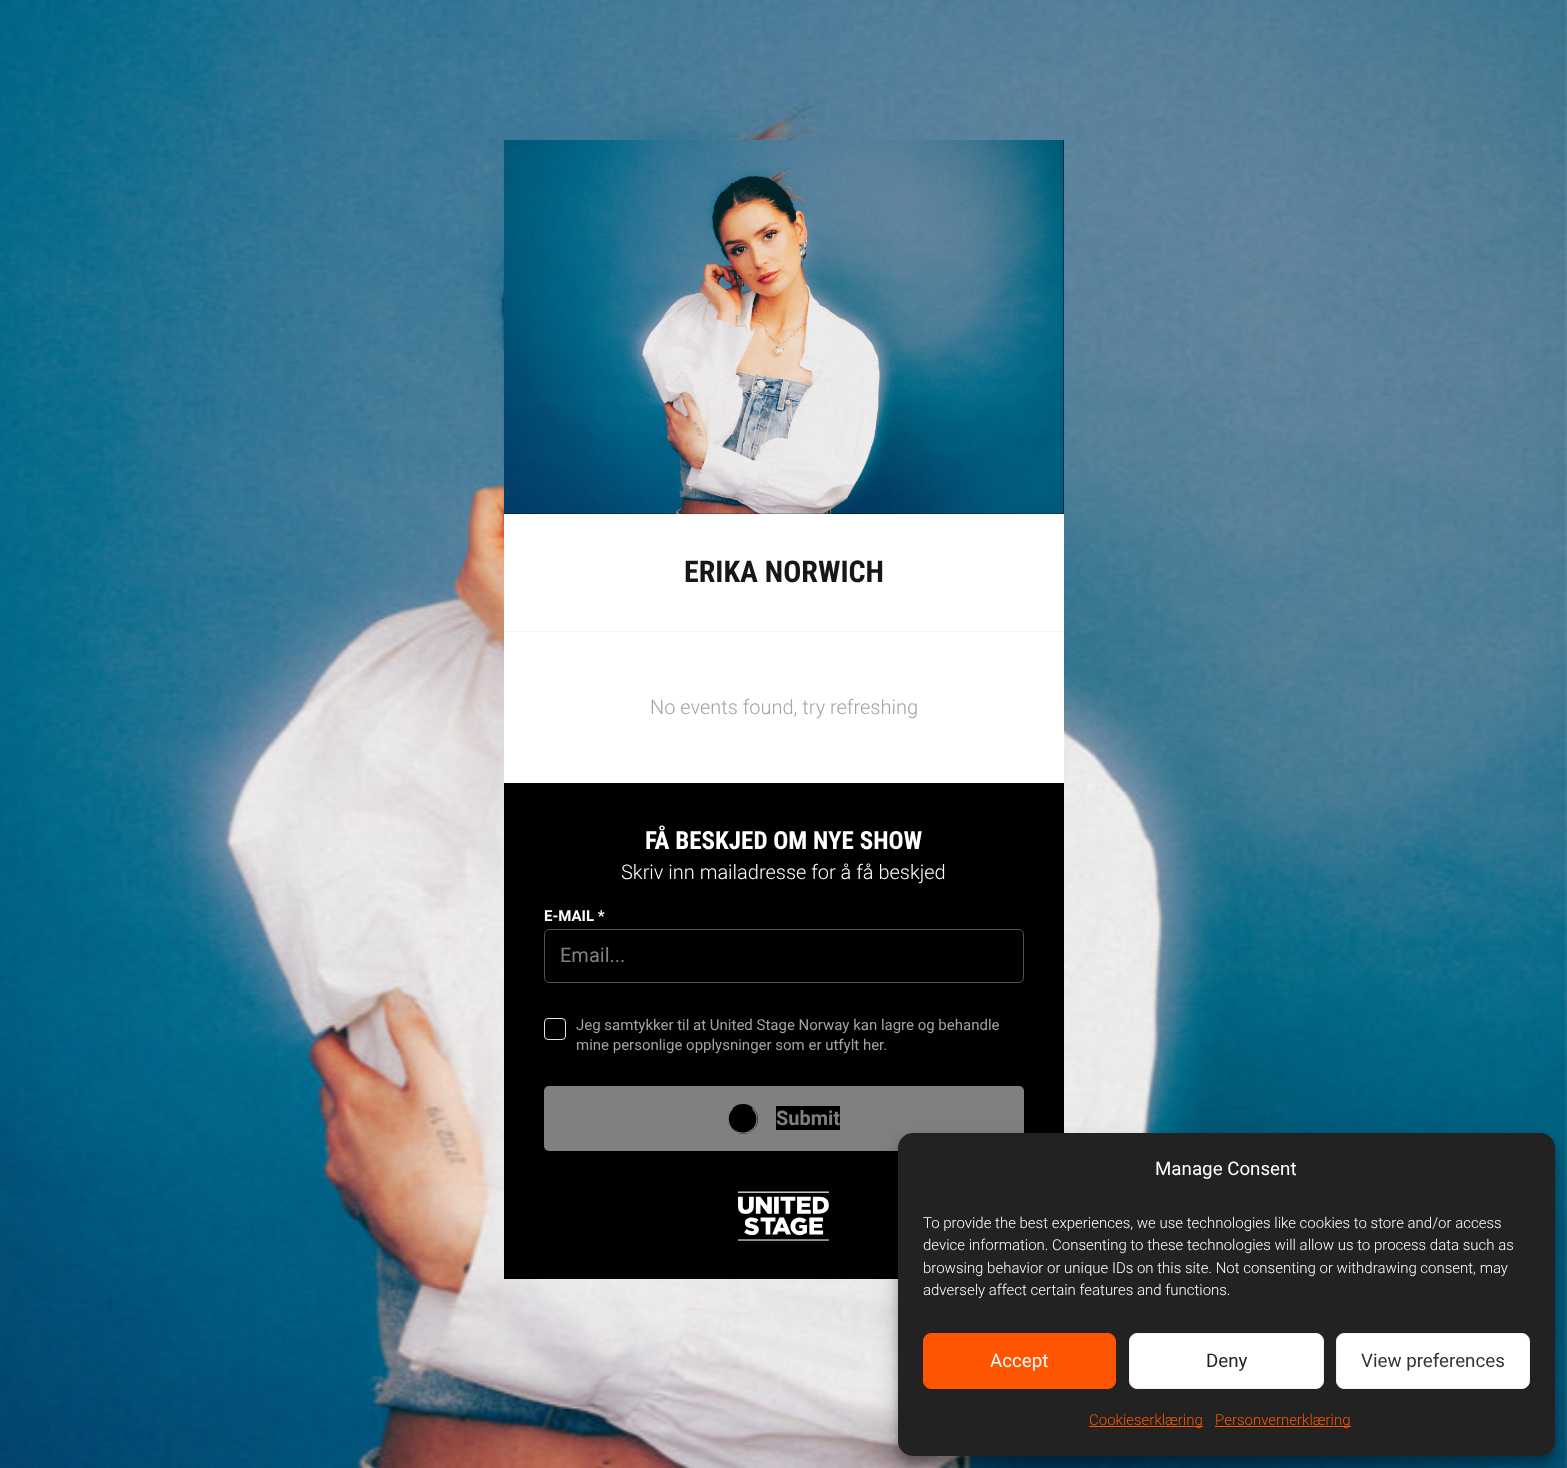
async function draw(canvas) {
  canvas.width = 1567;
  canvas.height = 1468;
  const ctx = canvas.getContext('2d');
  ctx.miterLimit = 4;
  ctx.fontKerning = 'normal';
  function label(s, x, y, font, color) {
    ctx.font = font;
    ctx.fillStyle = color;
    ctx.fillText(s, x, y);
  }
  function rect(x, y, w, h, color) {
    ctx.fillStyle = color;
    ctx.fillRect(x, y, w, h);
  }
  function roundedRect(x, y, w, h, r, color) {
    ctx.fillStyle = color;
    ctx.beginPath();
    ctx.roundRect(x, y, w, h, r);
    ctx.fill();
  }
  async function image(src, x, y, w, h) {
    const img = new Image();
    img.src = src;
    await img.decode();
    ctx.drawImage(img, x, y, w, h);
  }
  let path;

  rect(0, 0, 1567, 1468, '#fff');
  await image('assets/img1.png', 0, 0, 1567, 1468);
  rect(504, 514, 560, 269, '#fff');
  rect(504, 140, 560, 374, '#000');
  await image('assets/img2.png', 503, 140, 561, 374);
  rect(504, 631, 560, 1, '#f5f5f5');
  label('ERIKA NORWICH', 684, 582, 'bold 30px Roboto Condensed', '#171717');
  label('No events found, try refreshing', 650, 714, '300 20px Roboto', '#a3a3a3');
  rect(504, 783, 560, 408, '#000');
  label('FÅ BESKJED OM NYE SHOW', 645, 849, 'bold 25px Roboto Condensed', '#fff');
  label('Skriv inn mailadresse for å få beskjed', 621, 879, '300 20px Roboto', '#fff');
  label('E-MAIL *', 544, 921, 'bold 15px Roboto', '#fff');
  ctx.beginPath();
  ctx.roundRect(544.5, 929.5, 479, 53, 4.5);
  ctx.strokeStyle = '#525252';
  ctx.stroke();
  label('Email...', 560, 962, '20px Roboto', '#808080');
  ctx.beginPath();
  ctx.roundRect(544.5, 1018.5, 21, 21, 3.5);
  ctx.strokeStyle = '#e5e5e5';
  ctx.stroke();
  label('Jeg samtykker til at United Stage Norway kan lagre og behandle', 576, 1030, '15px Roboto', '#a3a3a3');
  label('mine personlige opplysninger som er utfylt her.', 576, 1050, '15px Roboto', '#a3a3a3');
  roundedRect(544, 1086, 480, 65, 5, '#808080');
  ctx.fillStyle = '#000';
  ctx.beginPath();
  ctx.arc(743, 1119, 15, 0, 2 * Math.PI);
  ctx.fill();
  path = new Path2D('M752.5 1108.5C755.5 1111.5 757 1115 757 1119C757 1136 732 1138.5 728.5 1121.5C727.5 1117 729 1112 732.5 1108.5');
  ctx.strokeStyle = '#808080';
  ctx.lineWidth = 1.2;
  ctx.stroke(path);
  rect(776, 1106, 64, 24, '#000');
  label('Submit', 776, 1125, 'bold 20px Roboto', '#808080');
  rect(504, 1191, 394, 88, '#000');
  await image('assets/img3.png', 738, 1191, 91, 50);
  ctx.fillStyle = '#0000003b';
  ctx.filter = 'blur(4px)';
  ctx.beginPath();
  ctx.roundRect(898, 1140, 657, 324, 15);
  ctx.fill();
  ctx.filter = 'none';
  ctx.fillStyle = '#00000030';
  ctx.filter = 'blur(12.5px)';
  ctx.beginPath();
  ctx.roundRect(898, 1145, 657, 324, 15);
  ctx.fill();
  ctx.filter = 'none';
  roundedRect(898, 1133, 657, 323, 15, '#222');
  label('Manage Consent', 1155, 1175, '18.75px Roboto', '#fff');
  label('To provide the best experiences, we use technologies like cookies to store and/or access', 923, 1228, '300 15px Roboto', '#fff');
  label('device information. Consenting to these technologies will allow us to process data such as', 923, 1250, '300 15px Roboto', '#fff');
  label('browsing behavior or unique IDs on this site. Not consenting or withdrawing consent, may', 923, 1273, '300 15px Roboto', '#fff');
  label('adversely affect certain features and functions.', 923, 1295, '300 15px Roboto', '#fff');
  ctx.fillStyle = '#f50';
  ctx.beginPath();
  ctx.roundRect(923.5, 1333.5, 192, 55, 7.5);
  ctx.fill();
  ctx.strokeStyle = '#f50';
  ctx.lineWidth = 1;
  ctx.stroke();
  label('Accept', 990, 1367, '18.75px Roboto', '#fff');
  ctx.beginPath();
  ctx.roundRect(1129.5, 1333.5, 194, 55, 7.5);
  ctx.fill();
  ctx.strokeStyle = '#f2f2f2';
  ctx.stroke();
  label('Deny', 1206, 1367, '18.75px Roboto', '#222');
  ctx.fillStyle = '#fff';
  ctx.beginPath();
  ctx.roundRect(1336.5, 1333.5, 193, 55, 7.5);
  ctx.fill();
  ctx.stroke();
  label('View preferences', 1361, 1367, '18.75px Roboto', '#333');
  rect(1089, 1426, 114, 1, '#f50');
  label('Cookieserklæring', 1089, 1425, '300 15px Roboto', '#f50');
  rect(1215, 1426, 136, 1, '#f50');
  label('Personvernerklæring', 1215, 1425, '300 15px Roboto', '#f50');
}

draw(document.querySelector('canvas'));
